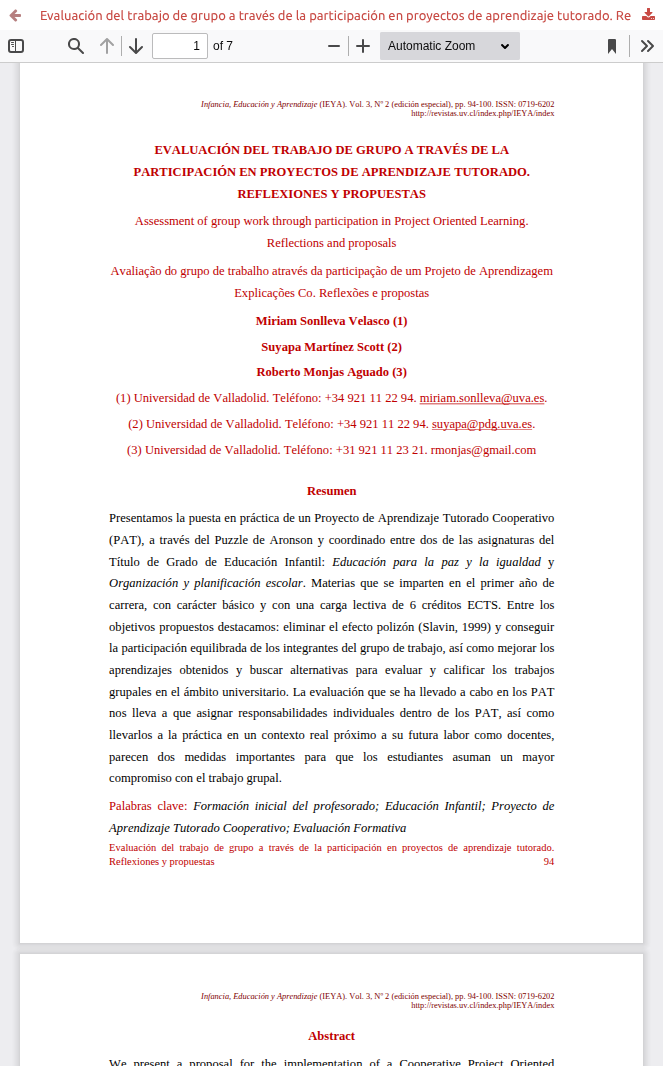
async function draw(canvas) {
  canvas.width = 663;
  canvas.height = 1066;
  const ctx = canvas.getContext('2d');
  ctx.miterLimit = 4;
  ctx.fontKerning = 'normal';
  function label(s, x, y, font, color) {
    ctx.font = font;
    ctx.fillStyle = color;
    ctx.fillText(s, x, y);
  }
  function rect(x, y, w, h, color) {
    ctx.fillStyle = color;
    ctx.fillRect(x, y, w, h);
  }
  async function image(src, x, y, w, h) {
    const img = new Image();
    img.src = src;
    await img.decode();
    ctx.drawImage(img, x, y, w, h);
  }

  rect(0, 0, 663, 1066, '#fff');
  await image('assets/img1.png', 9, 9, 12, 13);
  label('Evaluación del trabajo de grupo a través de la participación en proyectos de aprendizaje tutorado. Re', 40, 20, '13px Ubuntu', '#c84a44');
  await image('assets/img2.png', 642, 8, 13, 12);
  await image('assets/img3.png', 0, 30, 663, 1036);
}

draw(document.querySelector('canvas'));
